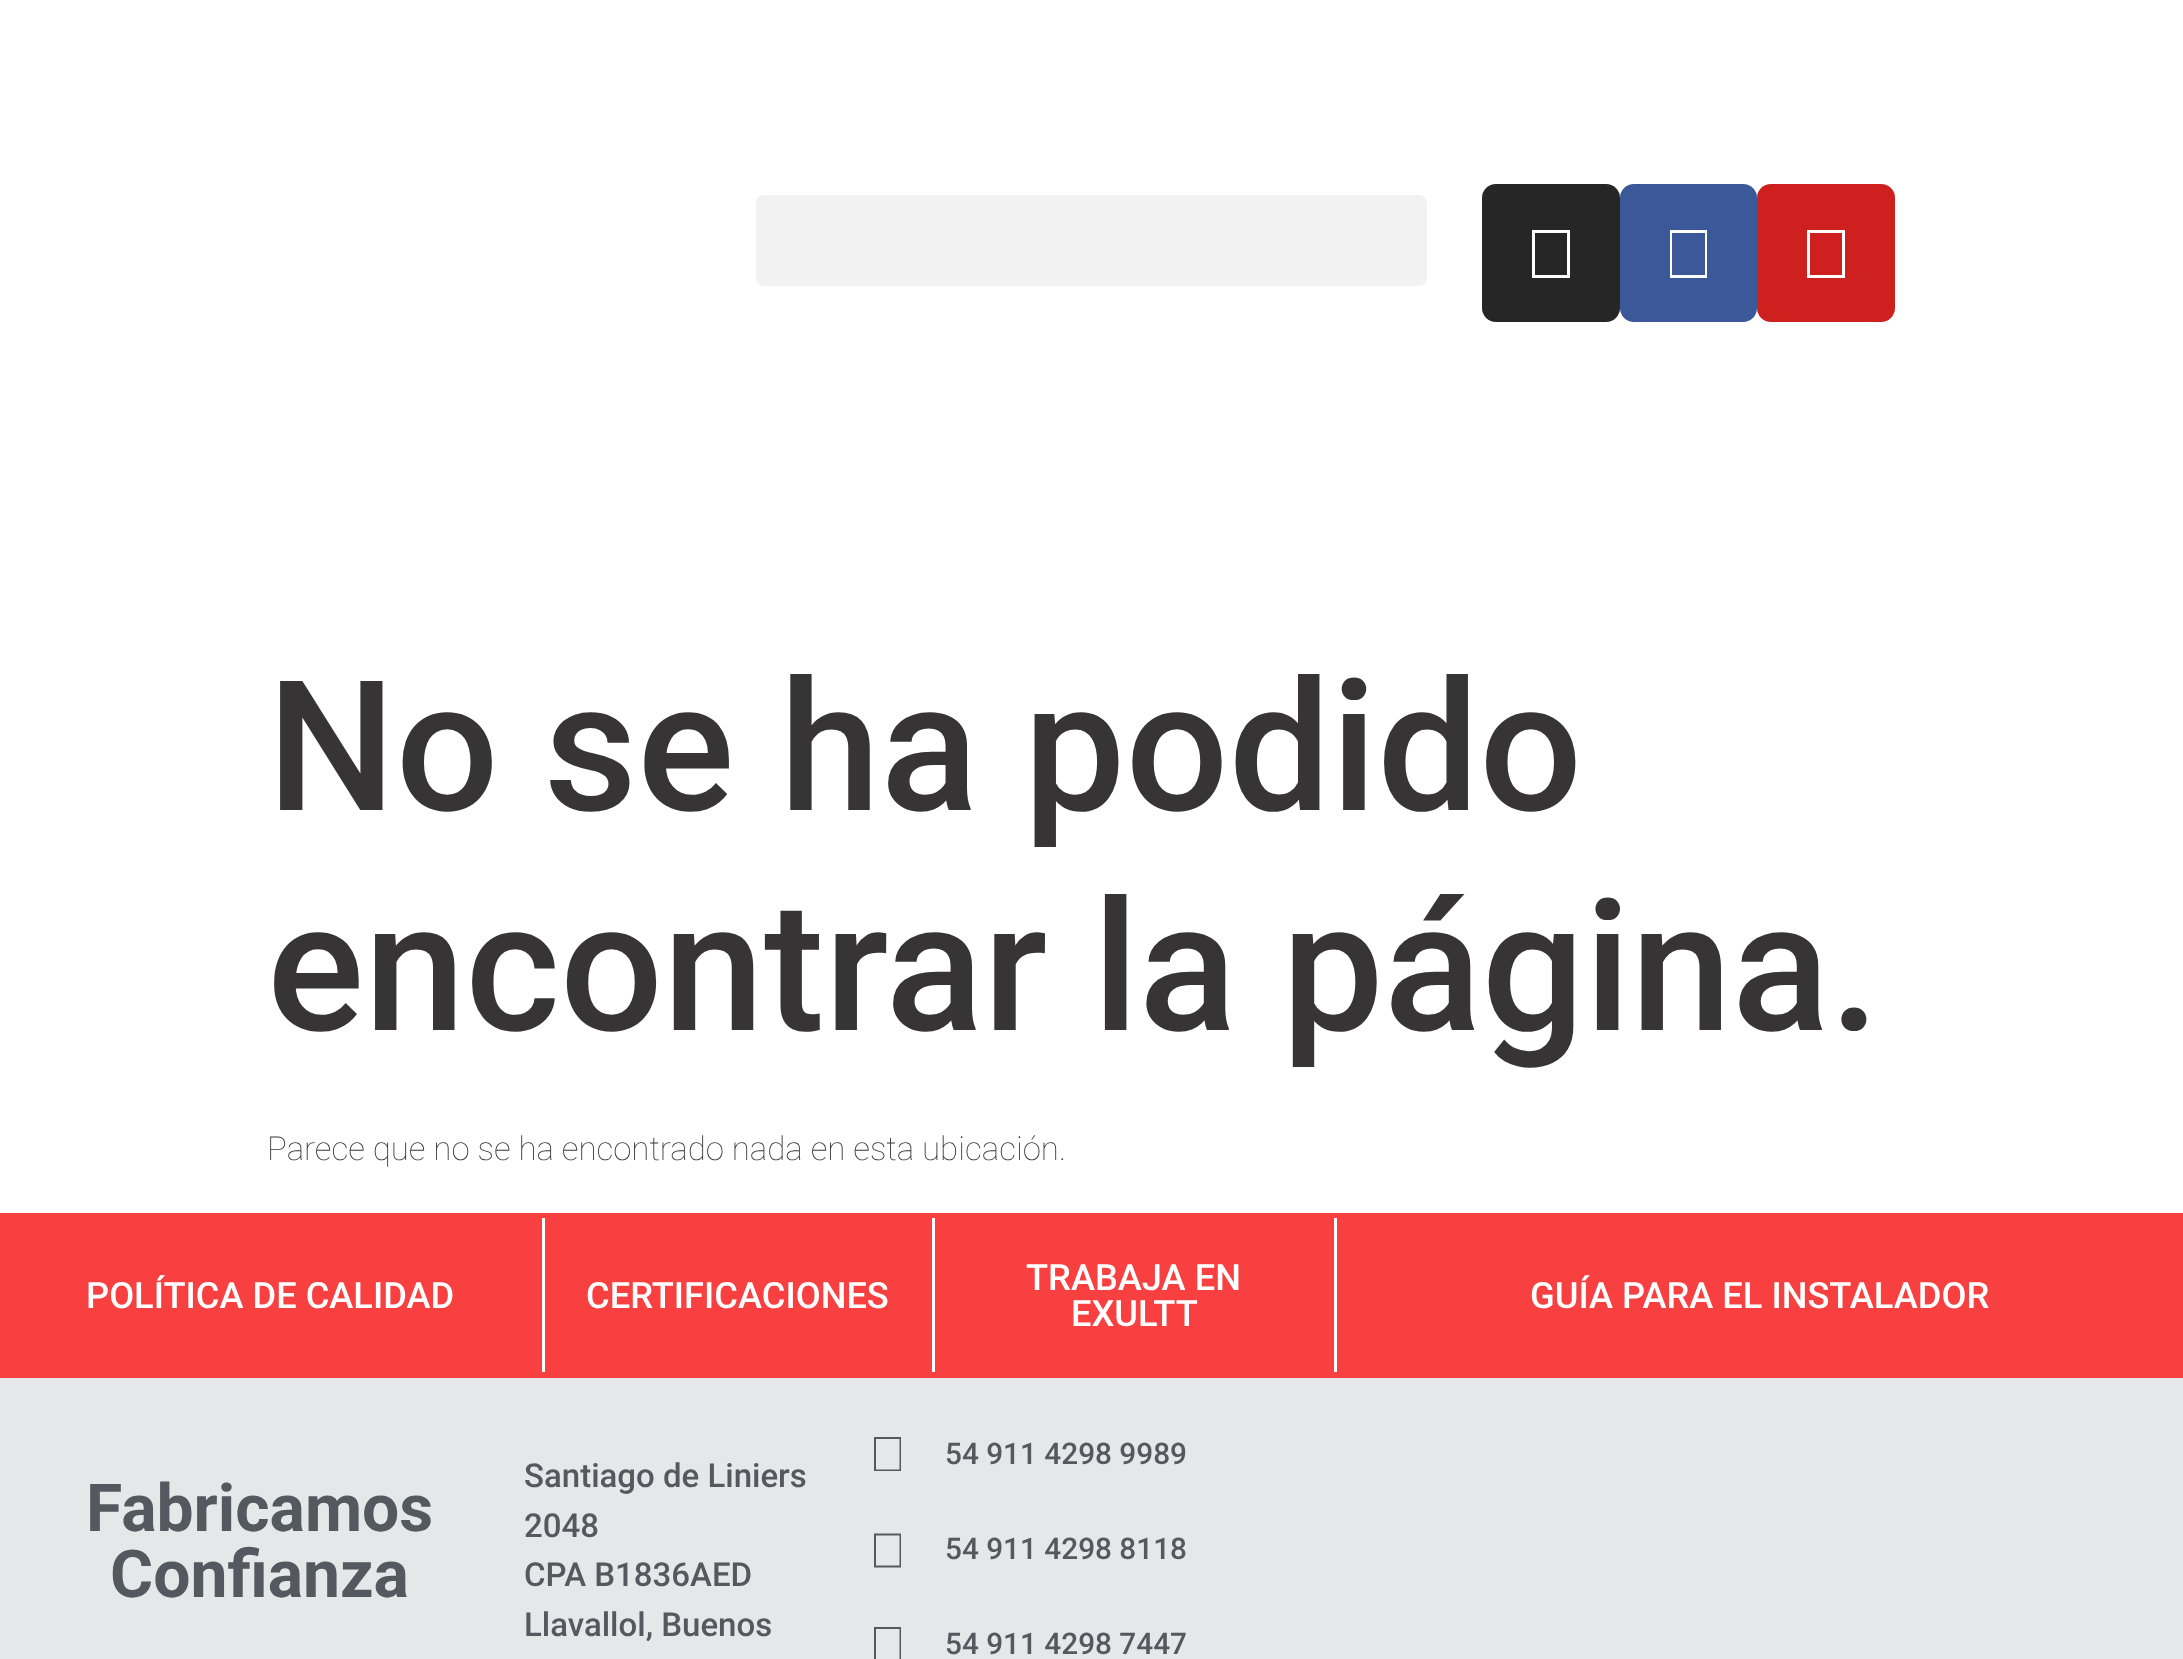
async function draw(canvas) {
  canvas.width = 2183;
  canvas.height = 1659;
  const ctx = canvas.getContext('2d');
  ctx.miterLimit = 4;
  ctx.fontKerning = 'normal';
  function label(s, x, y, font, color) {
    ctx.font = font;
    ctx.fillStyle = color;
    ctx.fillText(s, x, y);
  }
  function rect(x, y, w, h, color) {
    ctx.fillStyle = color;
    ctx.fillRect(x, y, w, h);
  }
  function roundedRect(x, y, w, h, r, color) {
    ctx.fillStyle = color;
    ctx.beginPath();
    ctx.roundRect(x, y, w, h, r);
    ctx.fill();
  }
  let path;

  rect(0, 0, 2183, 1659, '#fff');
  roundedRect(756, 195, 671, 91, 8, '#f2f2f2');
  roundedRect(1482, 184, 138, 138, 14, '#262626');
  ctx.fillStyle = '#fff';
  path = new Path2D('M1532 230H1570V278H1532ZM1535 233V275H1567V233Z');
  ctx.fill(path);
  roundedRect(1620, 184, 137, 138, 14, '#3b5998');
  ctx.fillStyle = '#fff';
  path = new Path2D('M1670 230H1707V278H1670ZM1672 233V275H1705V233Z');
  ctx.fill(path);
  roundedRect(1757, 184, 138, 138, 14, '#cd201f');
  ctx.fillStyle = '#fff';
  path = new Path2D('M1807 230H1845V278H1807ZM1810 233V275H1842V233Z');
  ctx.fill(path);
  label('No se ha podido', 267, 810, '500 181.5px Roboto', '#373435');
  label('encontrar la página.', 267, 1030, '500 181.5px Roboto', '#373435');
  label('Parece que no se ha encontrado nada en esta ubicación.', 267, 1160, '100 33px Roboto', '#373435');
  rect(0, 1213, 2183, 165, '#f84040');
  label('POLÍTICA DE CALIDAD', 86, 1308, '500 36.25px Roboto', '#fff');
  rect(542, 1218, 3, 154, '#fff');
  label('CERTIFICACIONES', 586, 1308, '500 36.25px Roboto', '#fff');
  rect(932, 1218, 3, 154, '#fff');
  label('TRABAJA EN', 1026, 1290, '500 36.25px Roboto', '#fff');
  label('EXULTT', 1071, 1326, '500 36.25px Roboto', '#fff');
  rect(1334, 1218, 3, 154, '#fff');
  label('GUÍA PARA EL INSTALADOR', 1530, 1308, '500 36.25px Roboto', '#fff');
  rect(0, 1378, 2183, 281, '#e6e7e8');
  label('Fabricamos', 86, 1531, 'bold 66px Roboto', '#54595f');
  label('Confianza', 110, 1597, 'bold 66px Roboto', '#54595f');
  label('Santiago de Liniers', 524, 1487, '500 33px Roboto', '#54595f');
  label('2048', 524, 1537, '500 33px Roboto', '#54595f');
  label('CPA B1836AED', 524, 1586, '500 33px Roboto', '#54595f');
  label('Llavallol, Buenos', 524, 1636, '500 33px Roboto', '#54595f');
  path = new Path2D('M874 1437H901V1471H874ZM876 1439V1469.5H899.5V1439Z');
  ctx.fill(path);
  label('54 911 4298 9989', 945, 1464, '500 29.75px Roboto', '#54595f');
  path = new Path2D('M874 1533.5H901V1567.5H874ZM876 1535.5V1565.5H899.5V1535.5Z');
  ctx.fill(path);
  label('54 911 4298 8118', 945, 1559, '500 29.75px Roboto', '#54595f');
  path = new Path2D('M874 1627H901V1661H874ZM876 1629V1659H899.5V1629Z');
  ctx.fill(path);
  label('54 911 4298 7447', 945, 1654, '500 29.75px Roboto', '#54595f');
}

draw(document.querySelector('canvas'));
